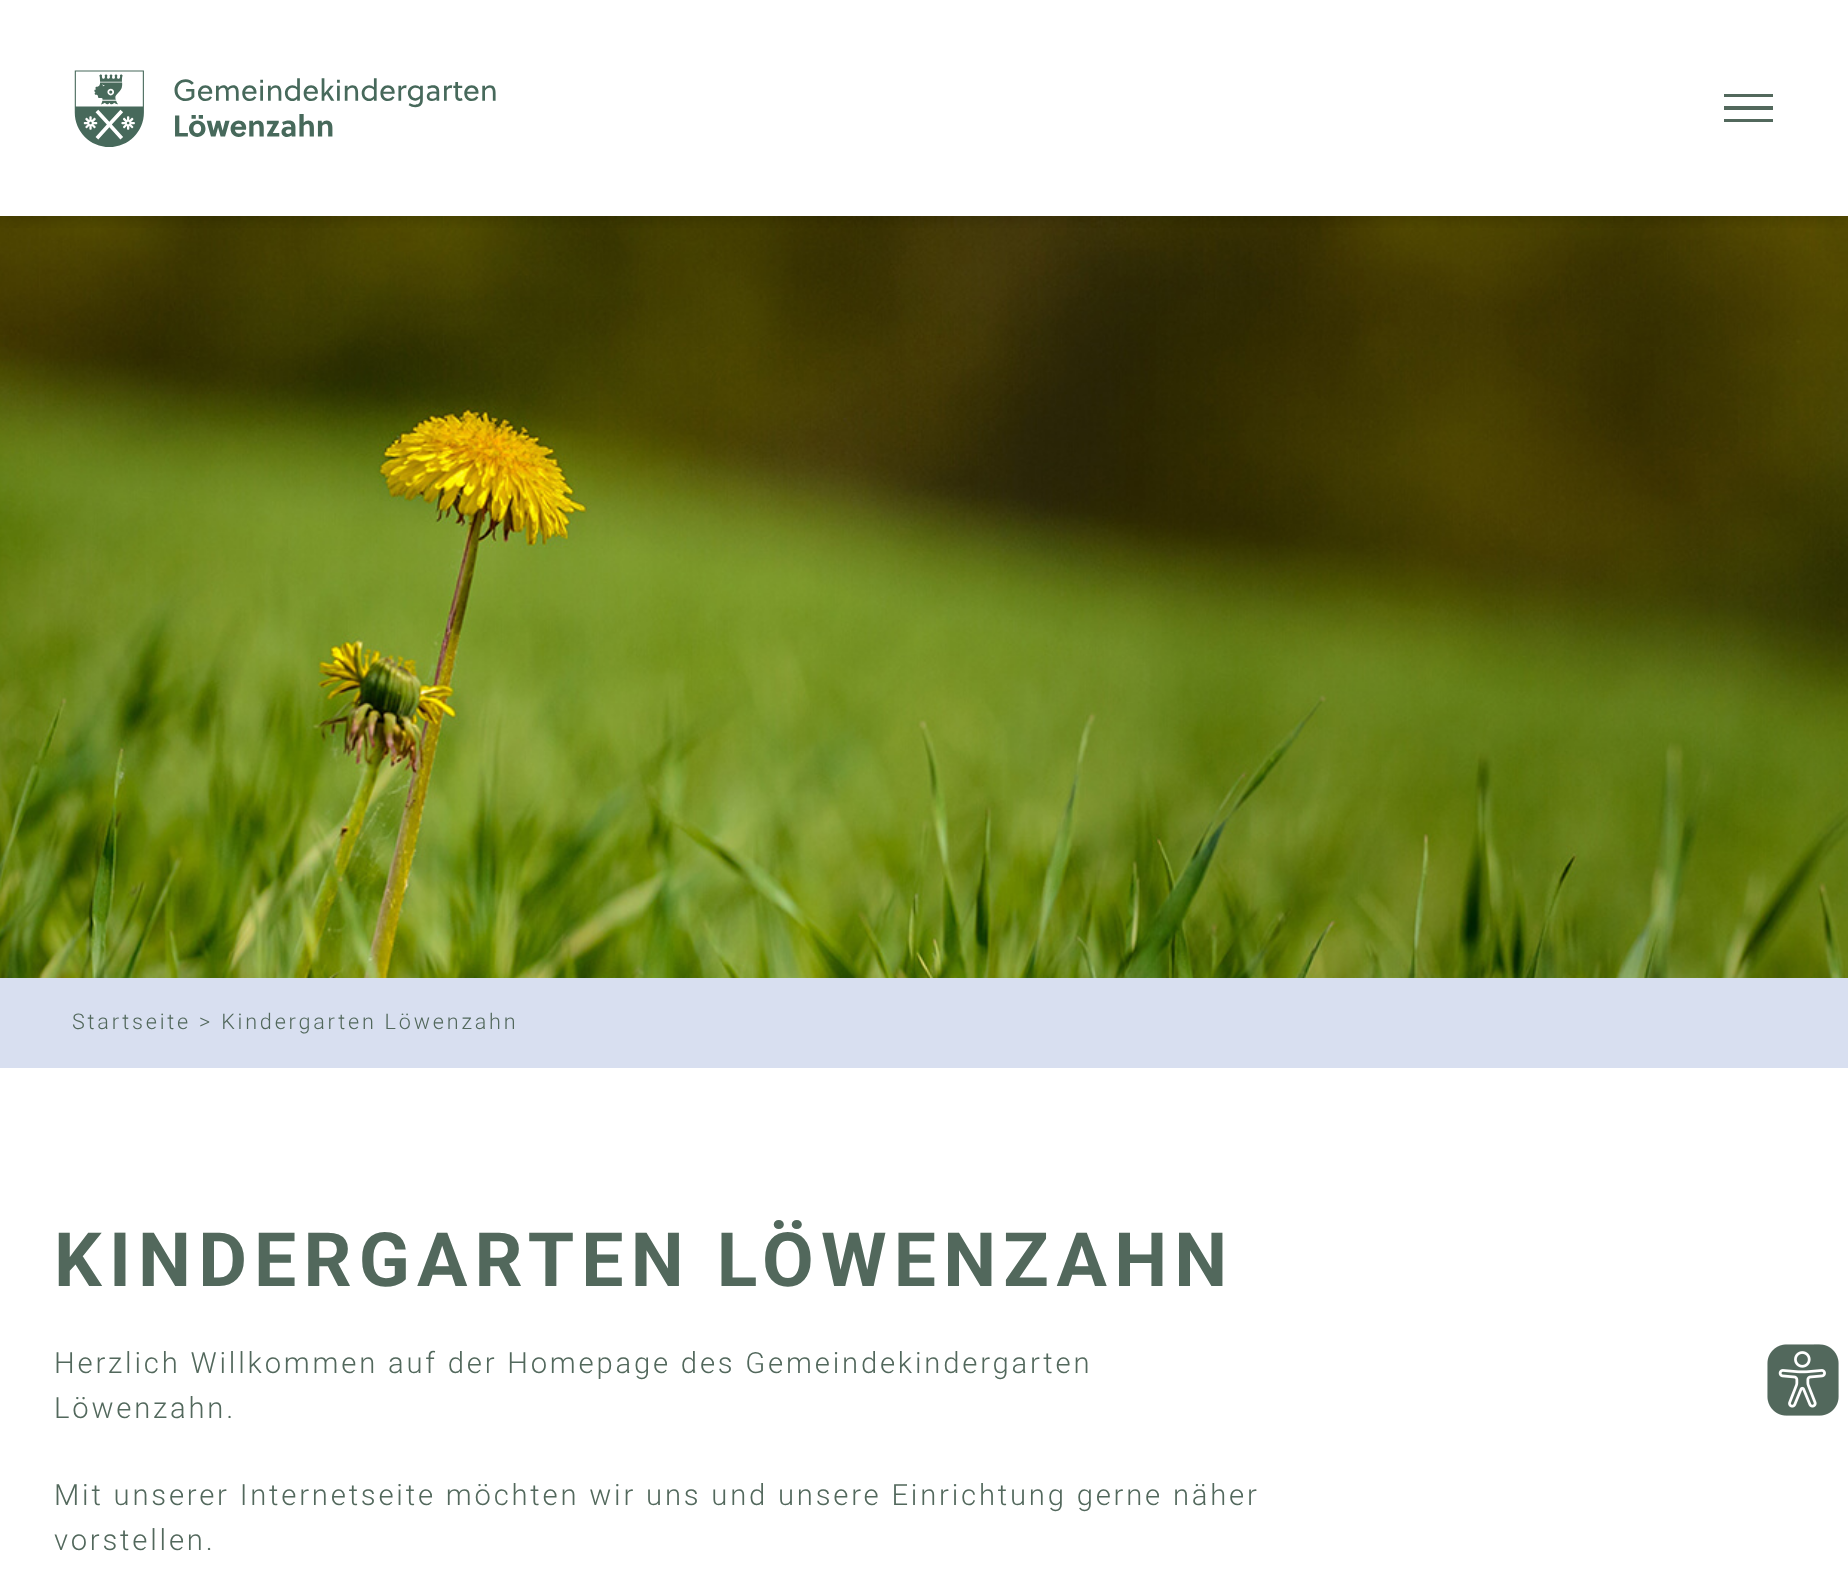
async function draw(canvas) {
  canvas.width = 1848;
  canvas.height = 1574;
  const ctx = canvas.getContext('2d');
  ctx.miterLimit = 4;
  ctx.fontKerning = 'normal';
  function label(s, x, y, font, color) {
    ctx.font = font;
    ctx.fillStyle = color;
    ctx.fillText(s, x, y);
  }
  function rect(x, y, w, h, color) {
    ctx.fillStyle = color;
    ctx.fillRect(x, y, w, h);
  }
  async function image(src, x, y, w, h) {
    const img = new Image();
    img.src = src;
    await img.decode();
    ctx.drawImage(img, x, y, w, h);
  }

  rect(0, 0, 1848, 1574, '#fff');
  await image('assets/img2.png', 0, 216, 1848, 762);
  ctx.save();
  ctx.beginPath();
  ctx.rect(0, 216, 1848, 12);
  ctx.clip();
  ctx.fillStyle = '#00000033';
  ctx.filter = 'blur(7.5px)';
  ctx.beginPath();
  ctx.rect(2, 5, 1845, 213);
  ctx.fill();
  ctx.filter = 'none';
  ctx.restore();
  await image('assets/img1.png', 74, 70, 422, 77);
  rect(1724, 94, 49, 3, '#52685c');
  rect(1724, 106, 49, 4, '#52685c');
  rect(1724, 119, 49, 3, '#52685c');
  rect(0, 978, 1848, 90, '#d8dff0');
  ctx.letterSpacing = '2.8px';
  label('Startseite > Kindergarten Löwenzahn', 72, 1029, '300 21.6px Roboto', '#52685c');
  ctx.letterSpacing = '7.2px';
  label('KINDERGARTEN LÖWENZAHN', 54, 1286, 'bold 75px Roboto', '#52685c');
  ctx.letterSpacing = '2.8px';
  label('Herzlich Willkommen auf der Homepage des Gemeindekindergarten', 54, 1373, '300 29.25px Roboto', '#52685c');
  label('Löwenzahn.', 54, 1418, '300 29.25px Roboto', '#52685c');
  label('Mit unserer Internetseite möchten wir uns und unsere Einrichtung gerne näher', 54, 1505, '300 29.25px Roboto', '#52685c');
  label('vorstellen.', 54, 1550, '300 29.25px Roboto', '#52685c');
  await image('assets/img3.png', 1767, 1344, 72, 72);
}

draw(document.querySelector('canvas'));
